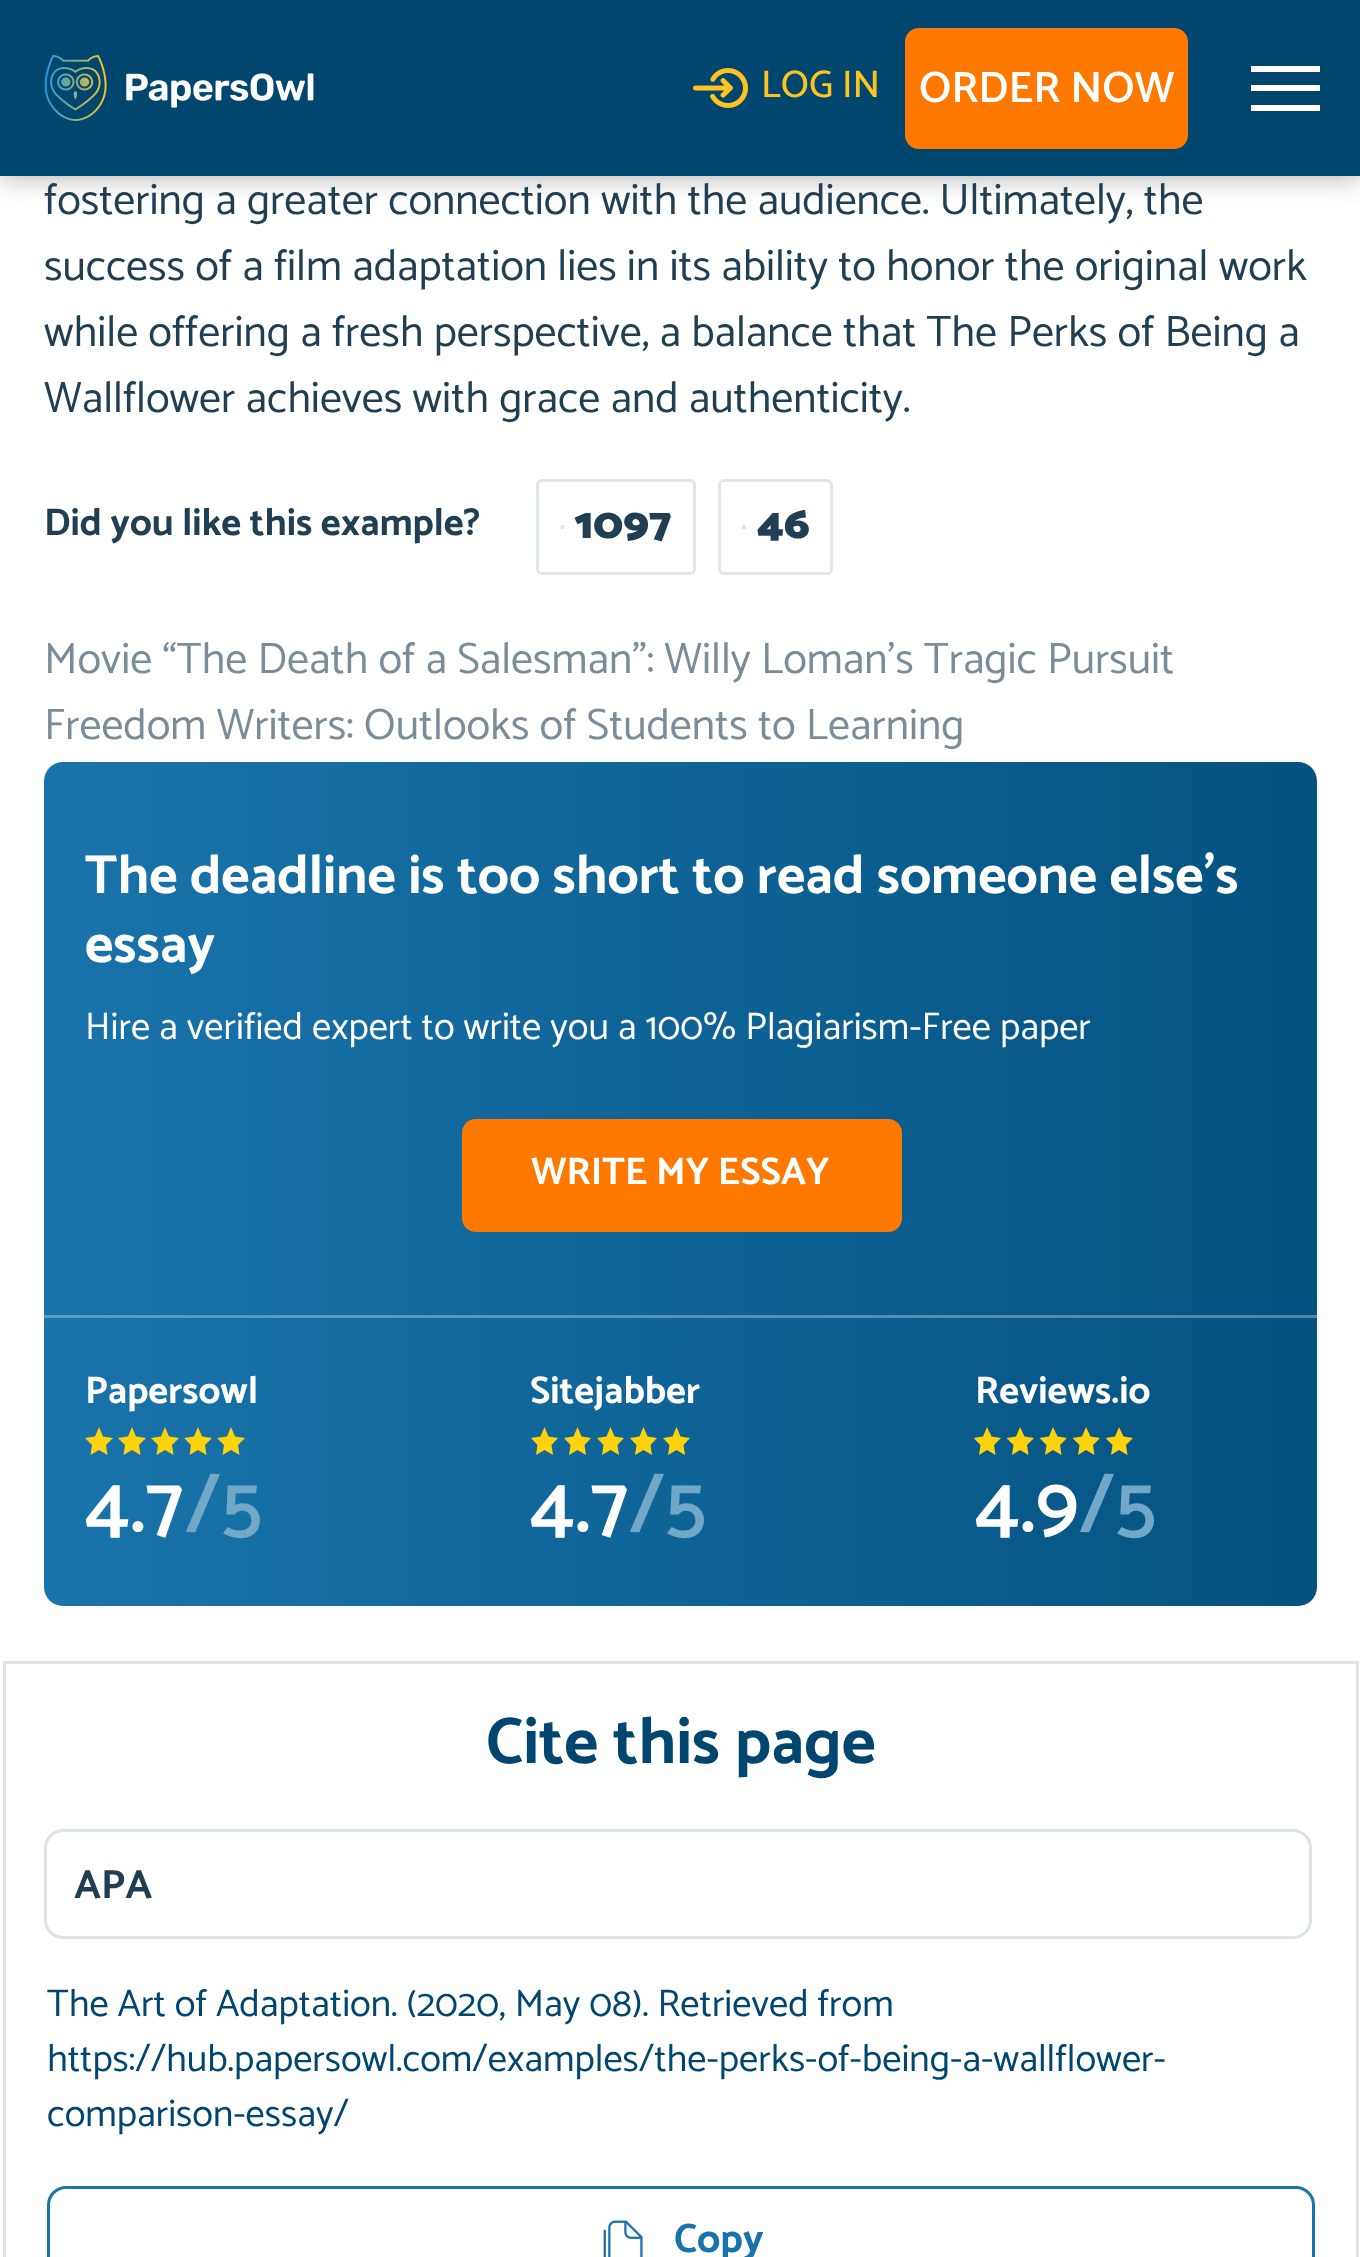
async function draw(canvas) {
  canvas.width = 1360;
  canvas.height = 2257;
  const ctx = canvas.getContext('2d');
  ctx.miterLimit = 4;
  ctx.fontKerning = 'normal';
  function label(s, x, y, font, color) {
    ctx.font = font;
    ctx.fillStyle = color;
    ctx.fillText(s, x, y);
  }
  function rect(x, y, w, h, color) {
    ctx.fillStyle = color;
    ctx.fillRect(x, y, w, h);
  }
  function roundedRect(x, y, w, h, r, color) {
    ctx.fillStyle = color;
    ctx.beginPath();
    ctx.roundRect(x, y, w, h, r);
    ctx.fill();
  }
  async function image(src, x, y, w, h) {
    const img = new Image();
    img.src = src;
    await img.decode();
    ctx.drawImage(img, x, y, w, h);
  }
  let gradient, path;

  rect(0, 0, 1360, 2257, '#fff');
  ctx.fillStyle = '#00000059';
  ctx.filter = 'blur(14px)';
  ctx.beginPath();
  ctx.rect(0, 0, 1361, 176);
  ctx.fill();
  ctx.filter = 'none';
  rect(0, 0, 1360, 176, '#00466f');
  await image('assets/img1.png', 44, 55, 270, 66);
  await image('assets/img2.png', 693, 68, 55, 40);
  label('LOG IN', 761, 97, '500 38.5px Catamaran', '#fdc420');
  roundedRect(905, 28, 283, 121, 14, '#ff7800');
  label('ORDER NOW', 919, 102, '600 44px Catamaran', '#fff');
  rect(1251, 66, 69, 6, '#fff');
  rect(1251, 85, 69, 6, '#fff');
  rect(1251, 105, 69, 6, '#fff');
  label('fostering a greater connection with the audience. Ultimately, the', 44, 214, '44px Catamaran', '#213f52');
  label('success of a film adaptation lies in its ability to honor the original work', 44, 280, '44px Catamaran', '#213f52');
  label('while offering a fresh perspective, a balance that The Perks of Being a', 44, 346, '44px Catamaran', '#213f52');
  label('Wallflower achieves with grace and authenticity.', 44, 412, '44px Catamaran', '#213f52');
  label('Did you like this example?', 44, 535, 'bold 38.5px Catamaran', '#213f52');
  ctx.beginPath();
  ctx.roundRect(537.5, 480.5, 157, 93, 4.5);
  ctx.strokeStyle = '#dfe6eb';
  ctx.lineWidth = 3;
  ctx.stroke();
  rect(561, 525, 3, 4, '#e4e4e4');
  label('1097', 574, 538, '900 44px Catamaran', '#213f52');
  ctx.beginPath();
  ctx.roundRect(719.5, 480.5, 112, 93, 4.5);
  ctx.stroke();
  rect(742, 525, 4, 4, '#e4e4e4');
  label('46', 757, 538, '900 44px Catamaran', '#213f52');
  label('Movie “The Death of a Salesman”: Willy Loman’s Tragic Pursuit', 44, 673, '44px Catamaran', '#7a8c97');
  label('Freedom Writers: Outlooks of Students to Learning', 44, 739, '44px Catamaran', '#7a8c97');
  gradient = ctx.createLinearGradient(1317, 1184, 44, 1184);
  gradient.addColorStop(0, '#045281');
  gradient.addColorStop(1, '#1974ab');
  ctx.fillStyle = gradient;
  ctx.beginPath();
  ctx.roundRect(44, 762, 1273, 844, 19);
  ctx.fill();
  gradient = ctx.createLinearGradient(1317, 1184, 44, 1184);
  gradient.addColorStop(0, '#4f86a7');
  gradient.addColorStop(1, '#5e9ec4');
  ctx.fillStyle = gradient;
  ctx.fillRect(44, 1315, 1273, 3);
  label('The deadline is too short to read someone else\'s', 85, 893, 'bold 55px Catamaran', '#fff');
  label('essay', 85, 962, 'bold 55px Catamaran', '#fff');
  label('Hire a verified expert to write you a 100% Plagiarism-Free paper', 85, 1039, '38.5px Catamaran', '#fff');
  roundedRect(462, 1119, 440, 113, 14, '#ff7800');
  label('WRITE MY ESSAY', 531, 1184, 'bold 38.5px Catamaran', '#fff');
  label('Papersowl', 85, 1403, 'bold 38.5px Catamaran', '#fff');
  ctx.fillStyle = '#ffd30b';
  path = new Path2D('M99 1450L90.5 1455L92 1445L85 1438L95 1436.5L99 1427L103 1436.5L113 1438L106 1445L107.5 1455ZM132 1450L123.5 1455L125 1445L118 1438L128 1436.5L132 1427L136 1436.5L146 1438L139 1445L140.5 1455Z');
  ctx.fill(path);
  path = new Path2D('M165 1450L156.5 1455L158 1445L151 1438L161 1436.5L165 1427L169 1436.5L179 1438L172 1445L173.5 1455ZM198 1450L189.5 1455L191 1445L184 1438L194 1436.5L198 1427L202 1436.5L212 1438L205 1445L206.5 1455Z');
  ctx.fill(path);
  path = new Path2D('M231 1450L222.5 1455L224 1445L217 1438L227 1436.5L231 1427L235 1436.5L245 1438L238 1445L239.5 1455Z');
  ctx.fill(path);
  label('4.7', 85, 1532, '600 82px Catamaran', '#fff');
  label('/5', 185, 1532, '600 82px Catamaran', '#71a7c7');
  label('Sitejabber', 530, 1403, 'bold 38.5px Catamaran', '#fff');
  ctx.fillStyle = '#ffd30b';
  path = new Path2D('M544.5 1450L536 1455L537.5 1445L531 1438L540.5 1436.5L544.5 1427L548.5 1436.5L558 1438L551.5 1445L553 1455ZM577.5 1450L569 1455L570.5 1445L564 1438L573.5 1436.5L577.5 1427L581.5 1436.5L591 1438L584.5 1445L586 1455Z');
  ctx.fill(path);
  path = new Path2D('M610.5 1450L602 1455L603.5 1445L597 1438L606.5 1436.5L610.5 1427L614.5 1436.5L624 1438L617.5 1445L619 1455ZM643.5 1450L635 1455L636.5 1445L630 1438L639.5 1436.5L643.5 1427L647.5 1436.5L657 1438L650.5 1445L652 1455Z');
  ctx.fill(path);
  path = new Path2D('M676.5 1450L668 1455L669.5 1445L663 1438L672.5 1436.5L676.5 1427L680.5 1436.5L690 1438L683.5 1445L685 1455Z');
  ctx.fill(path);
  label('4.7', 530, 1532, '600 82px Catamaran', '#fff');
  label('/5', 629, 1532, '600 82px Catamaran', '#71a7c7');
  label('Reviews.io', 975, 1403, 'bold 38.5px Catamaran', '#fff');
  ctx.fillStyle = '#ffd30b';
  path = new Path2D('M987 1450L979 1455L980.5 1445L973.5 1438L983 1436.5L987 1427L991.5 1436.5L1001 1438L994 1445L995.5 1455ZM1020 1450L1012 1455L1013.5 1445L1006.5 1438L1016 1436.5L1020 1427L1024.5 1436.5L1034 1438L1027 1445L1028.5 1455Z');
  ctx.fill(path);
  path = new Path2D('M1053 1450L1045 1455L1046.5 1445L1039.5 1438L1049 1436.5L1053 1427L1057.5 1436.5L1067 1438L1060 1445L1061.5 1455ZM1086 1450L1078 1455L1079.5 1445L1072.5 1438L1082 1436.5L1086 1427L1090.5 1436.5L1100 1438L1093 1445L1094.5 1455Z');
  ctx.fill(path);
  path = new Path2D('M1119 1450L1111 1455L1112.5 1445L1105.5 1438L1115 1436.5L1119 1427L1123.5 1436.5L1133 1438L1126 1445L1127.5 1455Z');
  ctx.fill(path);
  label('4.9', 975, 1532, '600 82px Catamaran', '#fff');
  label('/5', 1079, 1532, '600 82px Catamaran', '#71a7c7');
  ctx.strokeStyle = '#e1e1e1';
  ctx.strokeRect(4.5, 1662.5, 1353, 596);
  label('Cite this page', 486, 1763, 'bold 66px Catamaran', '#00466f');
  ctx.beginPath();
  ctx.roundRect(45.5, 1830.5, 1265, 107, 17.5);
  ctx.strokeStyle = '#d9e3e9';
  ctx.stroke();
  label('APA', 74, 1898, 'bold 41px Catamaran', '#213f52');
  label('The Art of Adaptation. (2020, May 08). Retrieved from', 47, 2016, '38.5px Catamaran', '#00466f');
  label('https://hub.papersowl.com/examples/the-perks-of-being-a-wallflower-', 47, 2071, '38.5px Catamaran', '#00466f');
  label('comparison-essay/', 47, 2126, '38.5px Catamaran', '#00466f');
  ctx.beginPath();
  ctx.roundRect(48.5, 2187.5, 1265, 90, 17.5);
  ctx.strokeStyle = '#1974ab';
  ctx.stroke();
  await image('assets/img3.png', 603, 2220, 40, 37);
  label('Copy', 674, 2252, 'bold 41px Catamaran', '#1974ab');
}

draw(document.querySelector('canvas'));
